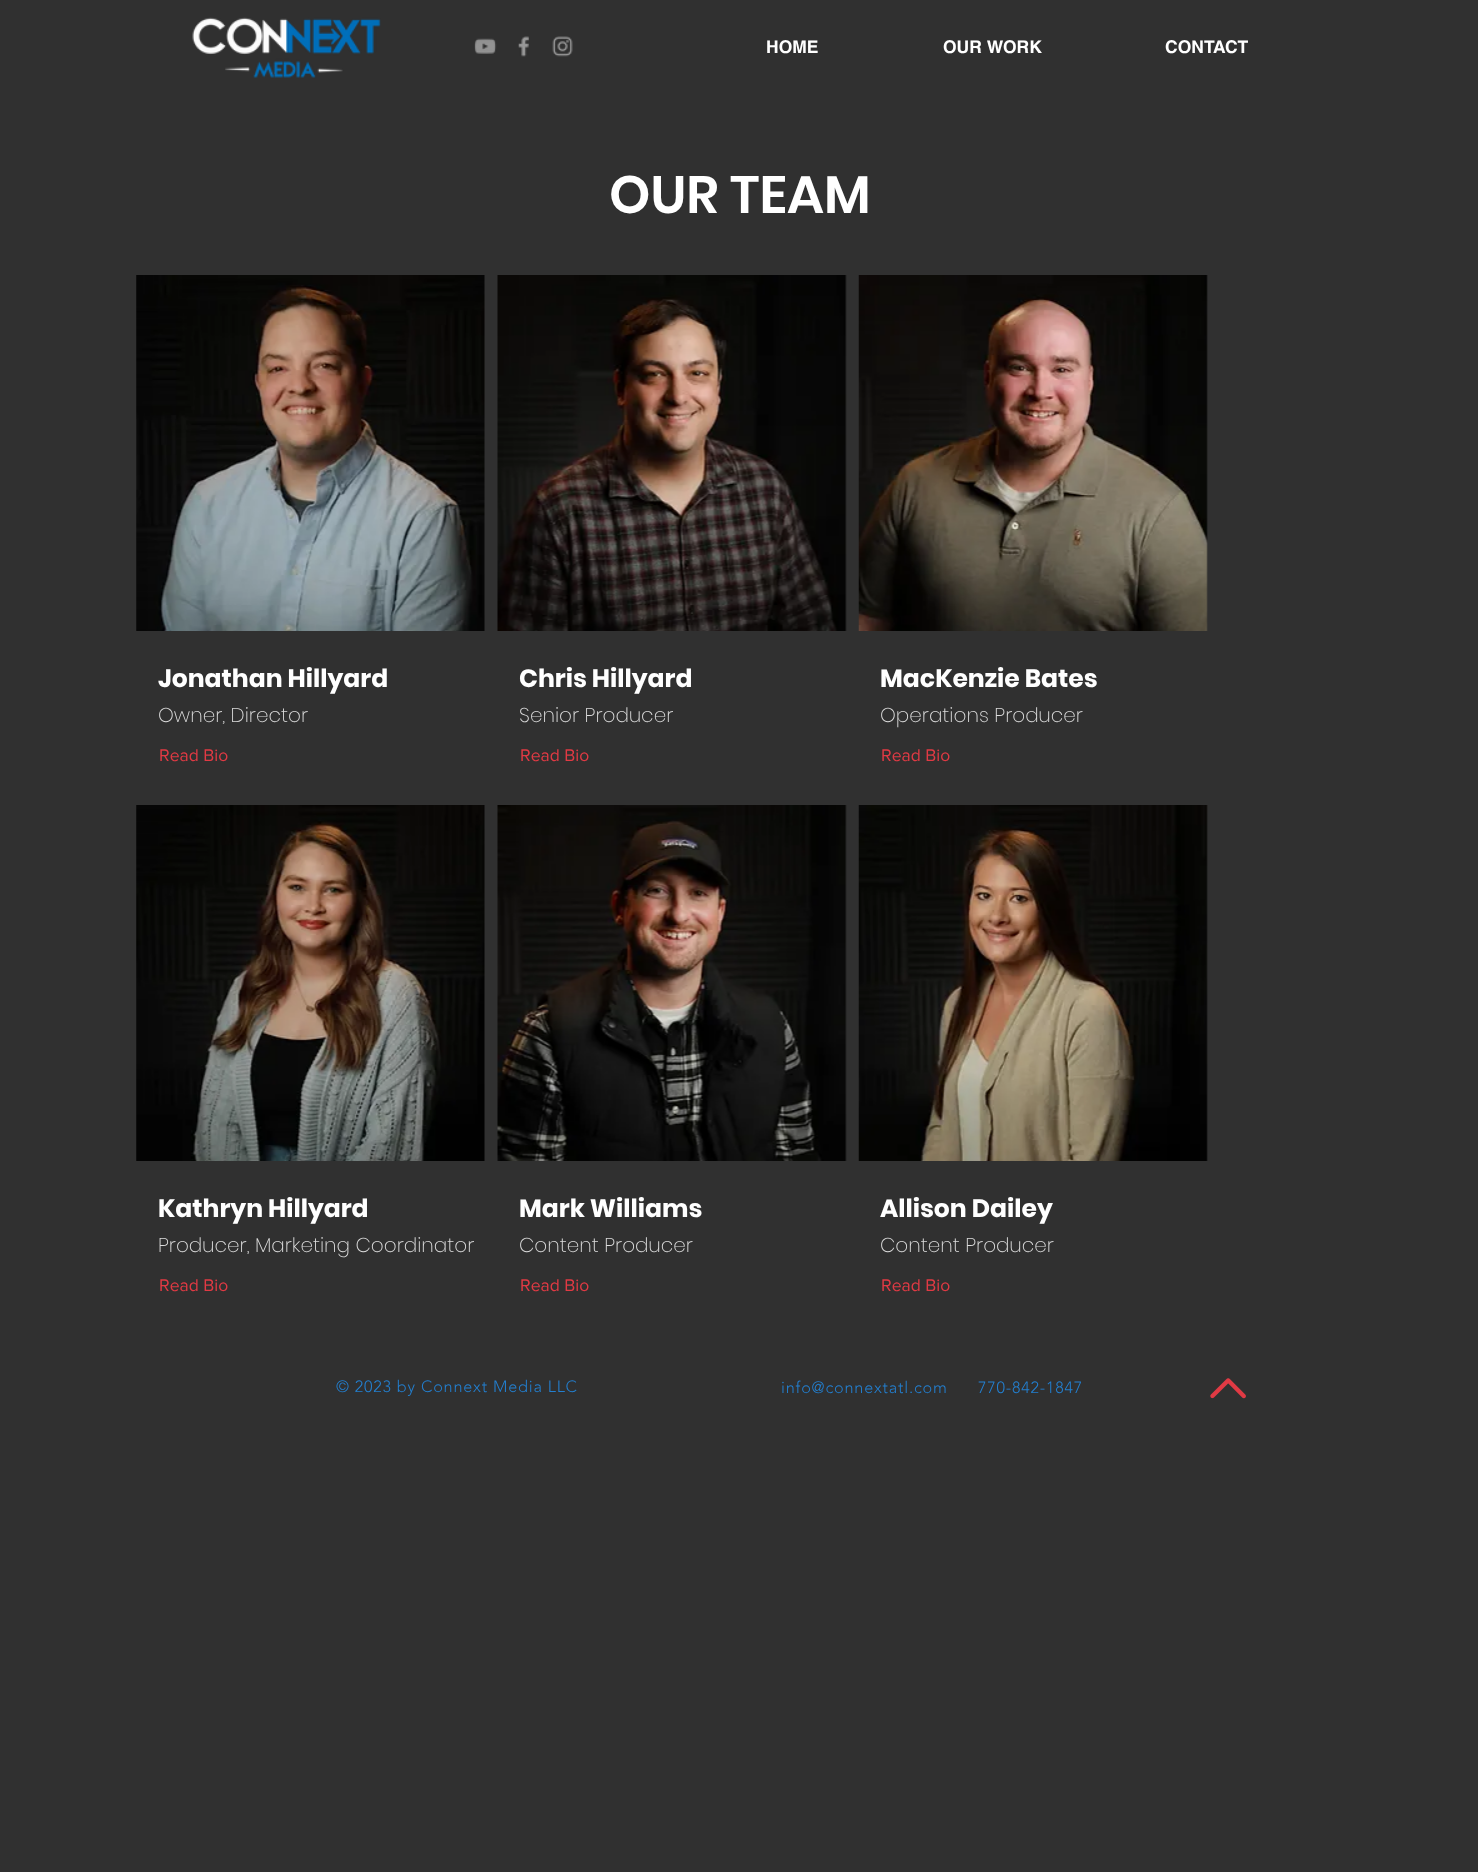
async function draw(canvas) {
  canvas.width = 1478;
  canvas.height = 1872;
  const ctx = canvas.getContext('2d');
  ctx.miterLimit = 4;
  ctx.fontKerning = 'normal';
  function label(s, x, y, font, color) {
    ctx.font = font;
    ctx.fillStyle = color;
    ctx.fillText(s, x, y);
  }
  function rect(x, y, w, h, color) {
    ctx.fillStyle = color;
    ctx.fillRect(x, y, w, h);
  }
  async function image(src, x, y, w, h) {
    const img = new Image();
    img.src = src;
    await img.decode();
    ctx.drawImage(img, x, y, w, h);
  }

  rect(0, 0, 1478, 1872, '#303030');
  await image('assets/img1.png', 192, 17, 189, 61);
  await image('assets/img2.png', 474, 38, 23, 16);
  await image('assets/img3.png', 518, 36, 11, 21);
  await image('assets/img4.png', 552, 36, 21, 21);
  label('HOME', 766, 53, 'bold 17.5px helvetica', '#fff');
  label('OUR WORK', 943, 53, 'bold 17.5px helvetica', '#fff');
  label('CONTACT', 1165, 53, 'bold 17.5px helvetica', '#fff');
  label('OUR TEAM', 609, 213, '600 52.5px Poppins', '#fff');
  await image('assets/img5.png', 136, 275, 349, 356);
  label('Jonathan Hillyard', 158, 687, 'bold 25px Poppins', '#fff');
  label('Owner, Director', 158, 722, '200 20px Poppins', '#dbdbdb');
  label('Read Bio', 159, 761, '17.5px "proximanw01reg"', '#e13a44');
  await image('assets/img6.png', 136, 805, 349, 356);
  label('Kathryn Hillyard', 158, 1217, 'bold 25px Poppins', '#fff');
  label('Producer, Marketing Coordinator', 158, 1252, '200 20px Poppins', '#dbdbdb');
  label('Read Bio', 159, 1291, '17.5px "proximanw01reg"', '#e13a44');
  await image('assets/img7.png', 497, 275, 350, 356);
  label('Chris Hillyard', 519, 687, 'bold 25px Poppins', '#fff');
  label('Senior Producer', 519, 722, '200 20px Poppins', '#dbdbdb');
  label('Read Bio', 520, 761, '17.5px "proximanw01reg"', '#e13a44');
  await image('assets/img8.png', 497, 805, 350, 356);
  label('Mark Williams', 519, 1217, 'bold 25px Poppins', '#fff');
  label('Content Producer', 519, 1252, '200 20px Poppins', '#dbdbdb');
  label('Read Bio', 520, 1291, '17.5px "proximanw01reg"', '#e13a44');
  await image('assets/img9.png', 858, 275, 350, 356);
  label('MacKenzie Bates', 880, 687, 'bold 25px Poppins', '#fff');
  label('Operations Producer', 880, 722, '200 20px Poppins', '#dbdbdb');
  label('Read Bio', 881, 761, '17.5px "proximanw01reg"', '#e13a44');
  await image('assets/img10.png', 858, 805, 350, 356);
  label('Allison Dailey', 880, 1217, 'bold 25px Poppins', '#fff');
  label('Content Producer', 880, 1252, '200 20px Poppins', '#dbdbdb');
  label('Read Bio', 881, 1291, '17.5px "proximanw01reg"', '#e13a44');
  ctx.letterSpacing = '0.8px';
  label('© 2023 by Connext Media LLC', 336, 1392, '300 16.25px "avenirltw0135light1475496"', '#237fcf');
  label('info@connextatl.com', 781, 1393, '300 16.25px "avenirltw0135light1475496"', '#237fcf');
  label('770-842-1847', 978, 1393, '300 16.25px "avenirltw0135light1475496"', '#237fcf');
  await image('assets/img11.png', 1210, 1378, 36, 21);
}

draw(document.querySelector('canvas'));
